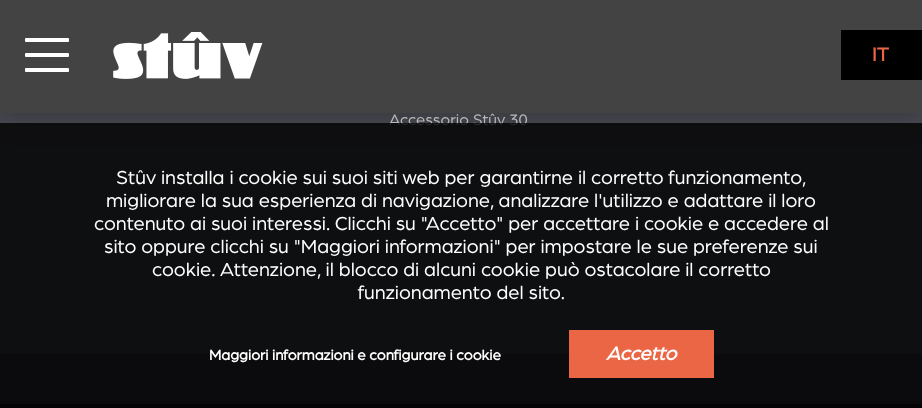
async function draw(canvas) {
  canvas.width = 922;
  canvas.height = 408;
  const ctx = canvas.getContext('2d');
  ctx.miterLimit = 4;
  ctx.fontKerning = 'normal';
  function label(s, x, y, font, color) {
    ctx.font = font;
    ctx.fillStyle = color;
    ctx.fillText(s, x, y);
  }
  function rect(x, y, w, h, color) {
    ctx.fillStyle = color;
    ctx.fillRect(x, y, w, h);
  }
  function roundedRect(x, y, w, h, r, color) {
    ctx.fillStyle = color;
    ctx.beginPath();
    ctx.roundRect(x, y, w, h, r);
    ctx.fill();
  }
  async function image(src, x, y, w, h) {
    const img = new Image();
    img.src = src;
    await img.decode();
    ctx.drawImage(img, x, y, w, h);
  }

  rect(0, 0, 922, 408, '#171717');
  rect(0, 113, 922, 241, '#494a52');
  ctx.fillStyle = '#0000004d';
  ctx.filter = 'blur(14.5px)';
  ctx.beginPath();
  ctx.rect(-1, 0, 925, 115);
  ctx.fill();
  ctx.filter = 'none';
  rect(0, 0, 922, 113, '#434343');
  roundedRect(25, 38, 44, 4, 1, '#fff');
  roundedRect(25, 53, 44, 4, 1, '#fff');
  roundedRect(25, 68, 44, 4, 1, '#fff');
  await image('assets/img1.png', 113, 32, 150, 47);
  rect(841, 30, 81, 50, '#000');
  label('IT', 872, 61, 'bold 20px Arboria', '#ea6645');
  label('Accessorio Stûv 30', 389, 125, '16.25px Arboria', '#b6b7ba');
  rect(0, 354, 922, 50, '#393a40');
  rect(0, 123, 922, 285, '#000000cc');
  label('Stûv installa i cookie sui suoi siti web per garantirne il corretto funzionamento,', 116, 184, '20px Arboria', '#fff');
  label('migliorare la sua esperienza di navigazione, analizzare l\'utilizzo e adattare il loro', 106, 207, '20px Arboria', '#fff');
  label('contenuto ai suoi interessi. Clicchi su "Accetto" per accettare i cookie e accedere al', 94, 230, '20px Arboria', '#fff');
  label('sito oppure clicchi su "Maggiori informazioni" per impostare le sue preferenze sui', 104, 253, '20px Arboria', '#fff');
  label('cookie. Attenzione, il blocco di alcuni cookie può ostacolare il corretto', 152, 276, '20px Arboria', '#fff');
  label('funzionamento del sito.', 358, 299, '20px Arboria', '#fff');
  label('Maggiori informazioni e configurare i cookie', 209, 360, 'bold 15px Arboria', '#fff');
  rect(569, 330, 145, 48, '#ea6645');
  label('Accetto', 606, 360, 'italic bold 20px Arboria', '#fff');
}

draw(document.querySelector('canvas'));
